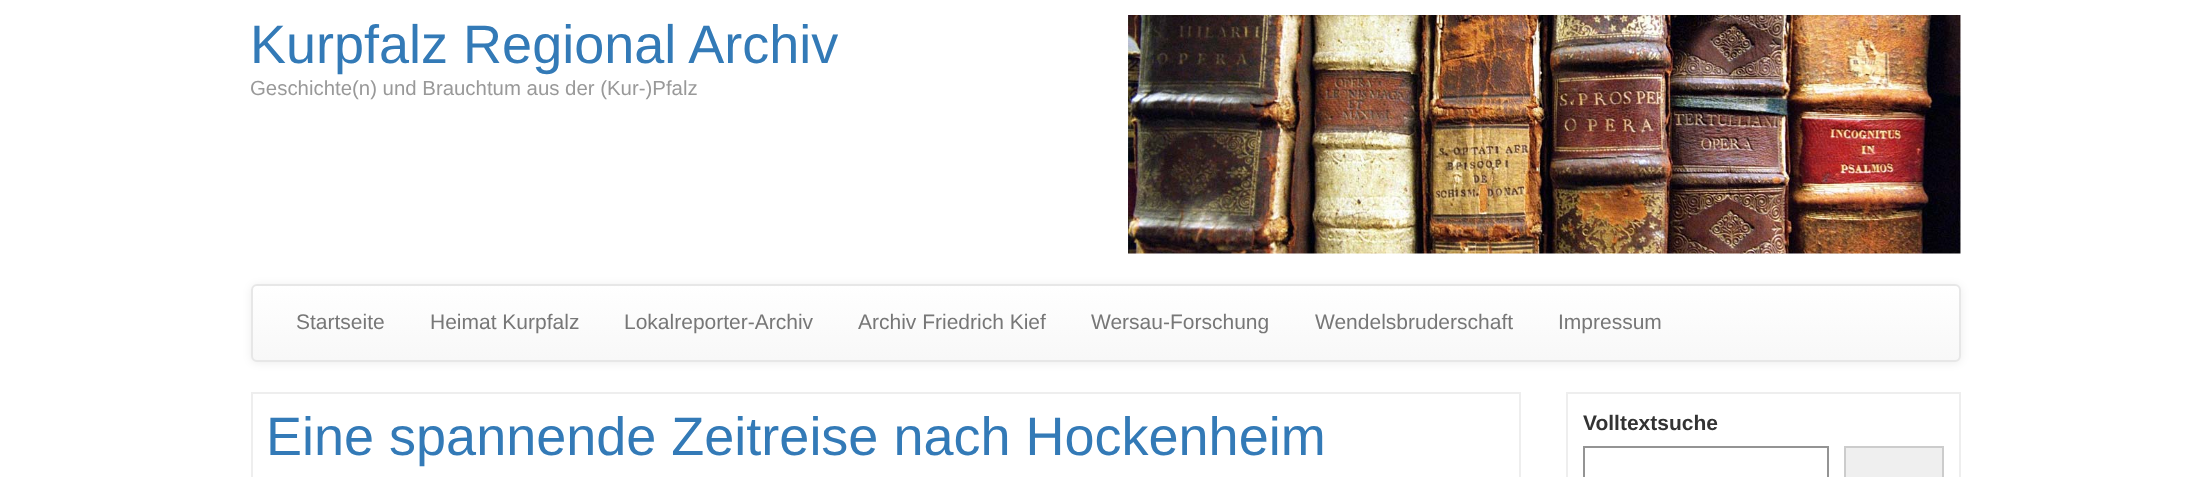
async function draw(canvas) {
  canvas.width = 2209;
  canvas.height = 477;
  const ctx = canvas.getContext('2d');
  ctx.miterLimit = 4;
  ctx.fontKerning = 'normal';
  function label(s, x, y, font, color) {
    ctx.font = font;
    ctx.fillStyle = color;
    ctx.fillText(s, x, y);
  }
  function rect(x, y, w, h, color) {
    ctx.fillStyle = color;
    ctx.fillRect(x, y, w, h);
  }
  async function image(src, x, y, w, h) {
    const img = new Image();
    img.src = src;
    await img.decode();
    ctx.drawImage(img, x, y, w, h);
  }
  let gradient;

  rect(0, 0, 2209, 477, '#fff');
  label('Kurpfalz Regional Archiv', 250, 63, '54px Liberation Sans', '#337ab7');
  label('Geschichte(n) und Brauchtum aus der (Kur-)Pfalz', 250, 95, '20.4px Liberation Sans', '#999');
  await image('assets/img1.png', 1128, 15, 833, 239);
  ctx.fillStyle = '#00000012';
  ctx.filter = 'blur(4px)';
  ctx.beginPath();
  ctx.roundRect(251, 285, 1710, 78, 6);
  ctx.fill();
  ctx.filter = 'none';
  ctx.save();
  ctx.beginPath();
  ctx.roundRect(251, 284, 1710, 78, 6);
  ctx.clip();
  gradient = ctx.createLinearGradient(1106, 285, 1106, 360);
  gradient.addColorStop(0, '#fff');
  gradient.addColorStop(1, '#f8f8f8');
  ctx.fillStyle = gradient;
  ctx.fillRect(251, 285, 1710, 75);
  ctx.restore();
  ctx.beginPath();
  ctx.roundRect(252, 285, 1708, 76, 5);
  ctx.strokeStyle = '#e7e7e7';
  ctx.lineWidth = 2;
  ctx.stroke();
  label('Startseite', 296, 329, '21px Liberation Sans', '#777');
  label('Heimat Kurpfalz', 430, 329, '21px Liberation Sans', '#777');
  label('Lokalreporter-Archiv', 624, 329, '21px Liberation Sans', '#777');
  label('Archiv Friedrich Kief', 858, 329, '21px Liberation Sans', '#777');
  label('Wersau-Forschung', 1091, 329, '21px Liberation Sans', '#777');
  label('Wendelsbruderschaft', 1315, 329, '21px Liberation Sans', '#777');
  label('Impressum', 1558, 329, '21px Liberation Sans', '#777');
  ctx.strokeStyle = '#eee';
  ctx.strokeRect(252, 393, 1268, 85);
  label('Eine spannende Zeitreise nach Hockenheim', 266, 455, '54px Liberation Sans', '#337ab7');
  ctx.strokeRect(1567, 393, 393, 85);
  label('Volltextsuche', 1583, 430, 'bold 21px Liberation Sans', '#333');
  ctx.strokeStyle = '#949494';
  ctx.strokeRect(1584, 447, 244, 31);
  ctx.fillStyle = '#efefef';
  ctx.beginPath();
  ctx.rect(1845, 447, 98, 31);
  ctx.fill();
  ctx.strokeStyle = '#ccc';
  ctx.stroke();
}

draw(document.querySelector('canvas'));
